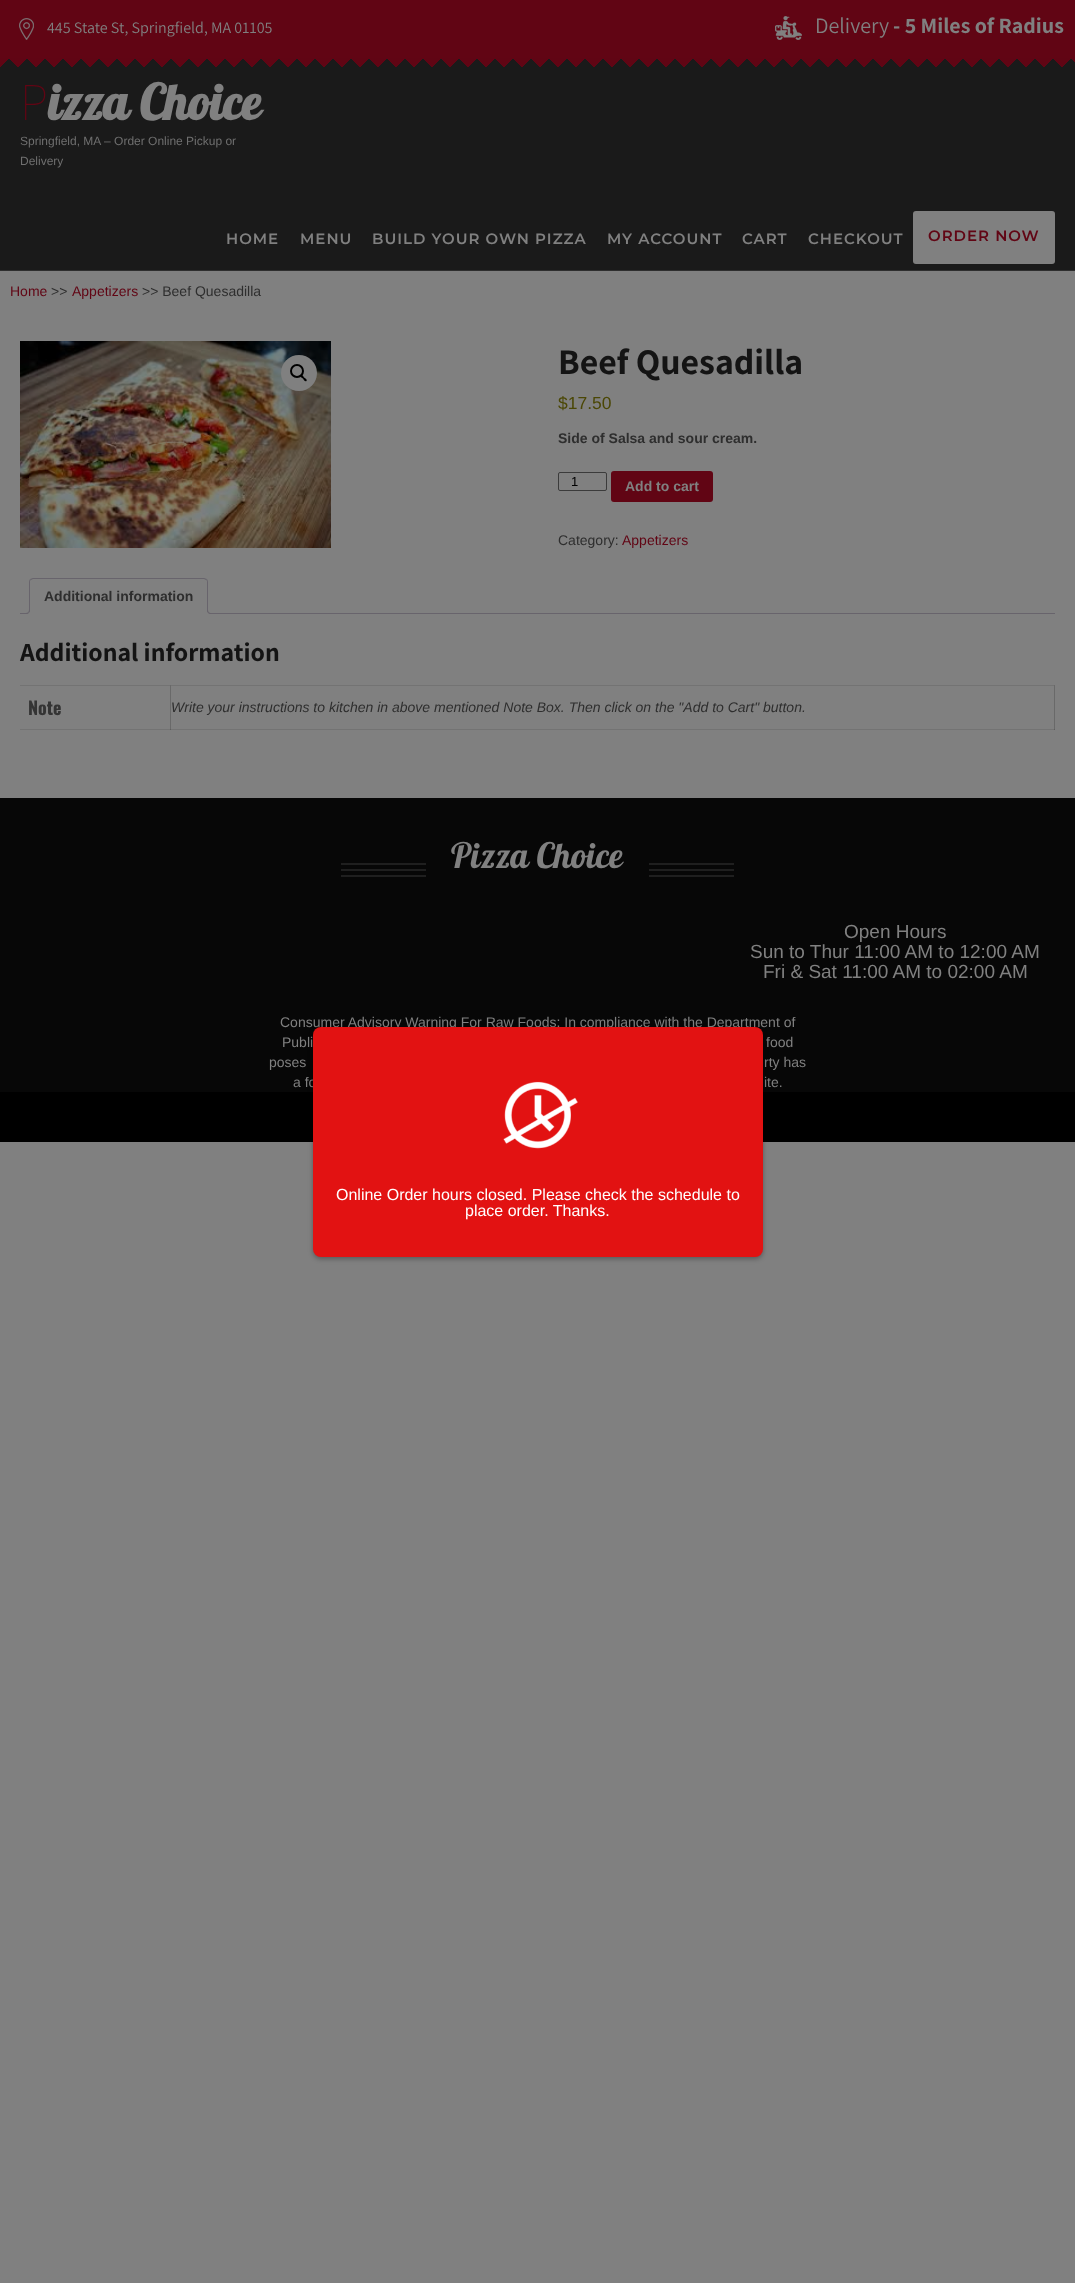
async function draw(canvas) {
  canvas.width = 1075;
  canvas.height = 2283;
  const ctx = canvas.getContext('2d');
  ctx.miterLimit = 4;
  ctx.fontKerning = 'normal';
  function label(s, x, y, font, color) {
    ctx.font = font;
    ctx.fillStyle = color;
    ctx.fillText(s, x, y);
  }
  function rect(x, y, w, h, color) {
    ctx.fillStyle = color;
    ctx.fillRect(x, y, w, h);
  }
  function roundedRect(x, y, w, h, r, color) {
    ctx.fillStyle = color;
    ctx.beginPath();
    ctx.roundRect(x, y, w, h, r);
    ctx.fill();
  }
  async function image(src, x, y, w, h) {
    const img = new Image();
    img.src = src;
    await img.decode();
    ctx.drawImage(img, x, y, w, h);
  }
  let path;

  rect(0, 0, 1075, 2283, '#808080');
  rect(20, 729, 1035, 1, '#737373');
  rect(0, 59, 1075, 211, '#1a1a1a');
  rect(0, 270, 1075, 1, '#2e2e2e');
  rect(0, 0, 1075, 58, '#610514');
  await image('assets/img1.png', 19, 18, 15, 22);
  label('445 State St, Springfield, MA 01105', 47, 33, '16px Assistant', '#808080');
  await image('assets/img2.png', 775, 16, 27, 24);
  label('Delivery', 815, 33, '22px Assistant', '#808080');
  label('- 5 Miles of Radius', 893, 33, 'bold 22px Assistant', '#808080');
  await image('assets/img3.png', 9, 58, 1066, 9);
  await image('assets/img4.png', 0, 58, 1071, 9);
  label('P', 20, 120, '100 49px Noto Sans', '#610514');
  label('izza Choice', 48, 120, 'bold 49px Pattaya', '#808080');
  label('Springfield, MA – Order Online Pickup or', 20, 145, '12px Liberation Sans', '#6f6f6f');
  label('Delivery', 20, 165, '12px Liberation Sans', '#6f6f6f');
  ctx.letterSpacing = '1px';
  label('HOME', 226, 244, '600 15px Montserrat', '#808080');
  label('MENU', 300, 244, '600 15px Montserrat', '#808080');
  label('BUILD YOUR OWN PIZZA', 372, 244, '600 15px Montserrat', '#808080');
  label('MY ACCOUNT', 607, 244, '600 15px Montserrat', '#808080');
  label('CART', 742, 244, '600 15px Montserrat', '#808080');
  label('CHECKOUT', 808, 244, '600 15px Montserrat', '#808080');
  roundedRect(913, 211, 142, 53, 3, '#808080');
  label('ORDER NOW', 928, 241, '600 15px Montserrat', '#610514');
  ctx.letterSpacing = '0px';
  label('Home', 10, 296, '14px Liberation Sans', '#610514');
  label('>>', 51, 296, '14px Liberation Sans', '#2e2e2e');
  label('Appetizers', 72, 296, '14px Liberation Sans', '#610514');
  label('>> Beef Quesadilla', 142, 296, '14px Liberation Sans', '#2e2e2e');
  await image('assets/img5.png', 20, 341, 311, 207);
  ctx.fillStyle = '#808080';
  ctx.beginPath();
  ctx.arc(299, 373, 18, 0, 2 * Math.PI);
  ctx.fill();
  ctx.beginPath();
  ctx.arc(297, 371, 6, 0, 2 * Math.PI);
  ctx.strokeStyle = '#000';
  ctx.lineWidth = 2;
  ctx.stroke();
  ctx.fillStyle = '#000';
  path = new Path2D('M300.5 375C302 374 303.5 376.5 304 377.5C305 378 307.5 379.5 306.5 381C305 382 303.5 379.5 303 378.5C302 378 299.5 376.5 300.5 375Z');
  ctx.fill(path);
  label('Beef Quesadilla', 558, 374, 'bold 36px Assistant', '#141414');
  label('$17.50', 558, 409, '17.5px Liberation Sans', '#4b4705');
  label('Side of Salsa and sour cream.', 558, 443, 'bold 14px Liberation Sans', '#2e2e2e');
  ctx.beginPath();
  ctx.roundRect(558.5, 472.5, 48, 18, 1.5);
  ctx.strokeStyle = '#3b3b3b';
  ctx.lineWidth = 1;
  ctx.stroke();
  label('1', 571, 486, '13px Liberation Sans', '#000');
  roundedRect(611, 471, 102, 31, 3, '#610514');
  label('Add to cart', 625, 491, 'bold 14px Liberation Sans', '#808080');
  label('Category:', 558, 545, '14px Liberation Sans', '#2e2e2e');
  label('Appetizers', 622, 545, '14px Liberation Sans', '#610514');
  rect(20, 613, 1035, 1, '#68646c');
  ctx.fillStyle = '#808080';
  ctx.beginPath();
  ctx.roundRect(29, 578, 179, 36, [4, 4, 0, 0]);
  ctx.fill();
  ctx.fillStyle = '#68646c';
  path = new Path2D('M33 578L30 579L31 580L33 579H204L206 580L207 579L204 578Z');
  ctx.fill(path);
  path = new Path2D('M208 614V582C208 581 207.5 580 207 579L206 580C207 580 207 581 207 582V613Z');
  ctx.fill(path);
  ctx.fillStyle = '#808080';
  path = new Path2D('M208 614L207 613H30L29 614Z');
  ctx.fill(path);
  ctx.fillStyle = '#68646c';
  path = new Path2D('M29 614L30 613V582C30 581 30 580 31 580L30 579C29.5 580 29 581 29 582Z');
  ctx.fill(path);
  label('Additional information', 44, 601, 'bold 14px Liberation Sans', '#2e2e2e');
  ctx.save();
  ctx.beginPath();
  ctx.rect(20, 578, 1035, 36);
  ctx.clip();
  ctx.fillStyle = '#808080';
  path = new Path2D('M27 614V616C30.5 616 32 614.5 32 611H30C29.5 612.5 28.5 613.5 27 614Z');
  ctx.fill(path);
  ctx.restore();
  ctx.fillStyle = '#68646c';
  path = new Path2D('M25 609H30C30 612.5 28.5 614 25 614ZM25 609H29C29 612 28 613 25 613Z');
  ctx.fill(path, 'evenodd');
  ctx.save();
  ctx.beginPath();
  ctx.rect(20, 578, 1035, 36);
  ctx.clip();
  ctx.fillStyle = '#808080';
  path = new Path2D('M205 611C205 614.5 206.5 616 210 616V614C208.5 613.5 207.5 612.5 207 611Z');
  ctx.fill(path);
  ctx.restore();
  path = new Path2D('M207 609H212V614C209.5 614 207 613 207 610ZM208 609H212V613C210 613 208 612.5 208 610Z');
  ctx.fill(path, 'evenodd');
  label('Additional information', 20, 661, 'bold 26px Assistant', '#141414');
  rect(20, 685, 1035, 1, '#737373');
  rect(170, 685, 1, 45, '#696969');
  rect(170, 729, 1, 1, '#5e5e5e');
  label('Note', 28, 715, 'bold 18px Oswald', '#343434');
  rect(1054, 685, 1, 45, '#696969');
  rect(1054, 729, 1, 1, '#5e5e5e');
  label('Write your instructions to kitchen in above mentioned Note Box. Then click on the "Add to Cart" button.', 171, 712, 'italic 14px Liberation Sans', '#2e2e2e');
  rect(0, 798, 1075, 294, '#070707');
  await image('assets/img6.png', 341, 863, 85, 14);
  label('Pizza Choice', 451, 868, '35px Pattaya', '#808080');
  await image('assets/img6.png', 649, 863, 85, 14);
  label('Open Hours', 844, 938, '19px Liberation Sans', '#808080');
  label('Sun to Thur 11:00 AM to 12:00 AM', 750, 958, '19px Liberation Sans', '#808080');
  label('Fri & Sat 11:00 AM to 02:00 AM', 763, 978, '19px Liberation Sans', '#808080');
  label('Consumer Advisory Warning For Raw Foods: In compliance with the Department of', 280, 1027, '14px Liberation Sans', '#808080');
  label('Publi', 282, 1047, '14px Liberation Sans', '#808080');
  label('food', 766, 1047, '14px Liberation Sans', '#808080');
  label('poses', 269, 1067, '14px Liberation Sans', '#808080');
  label('rty has', 764, 1067, '14px Liberation Sans', '#808080');
  label('a fo', 293, 1087, '14px Liberation Sans', '#808080');
  label('ite.', 764, 1087, '14px Liberation Sans', '#808080');
  rect(0, 1092, 1075, 50, '#000');
  ctx.fillStyle = '#0000004d';
  ctx.filter = 'blur(2.5px)';
  ctx.beginPath();
  ctx.roundRect(313, 1029, 450, 230, 8);
  ctx.fill();
  ctx.filter = 'none';
  roundedRect(313, 1027, 450, 230, 8, '#e21212');
  await image('assets/img7.png', 503, 1081, 75, 68);
  label('Online Order hours closed. Please check the schedule to', 336, 1200, '16px Liberation Sans', '#fff');
  label('place order. Thanks.', 465, 1216, '16px Liberation Sans', '#fff');
}

draw(document.querySelector('canvas'));
